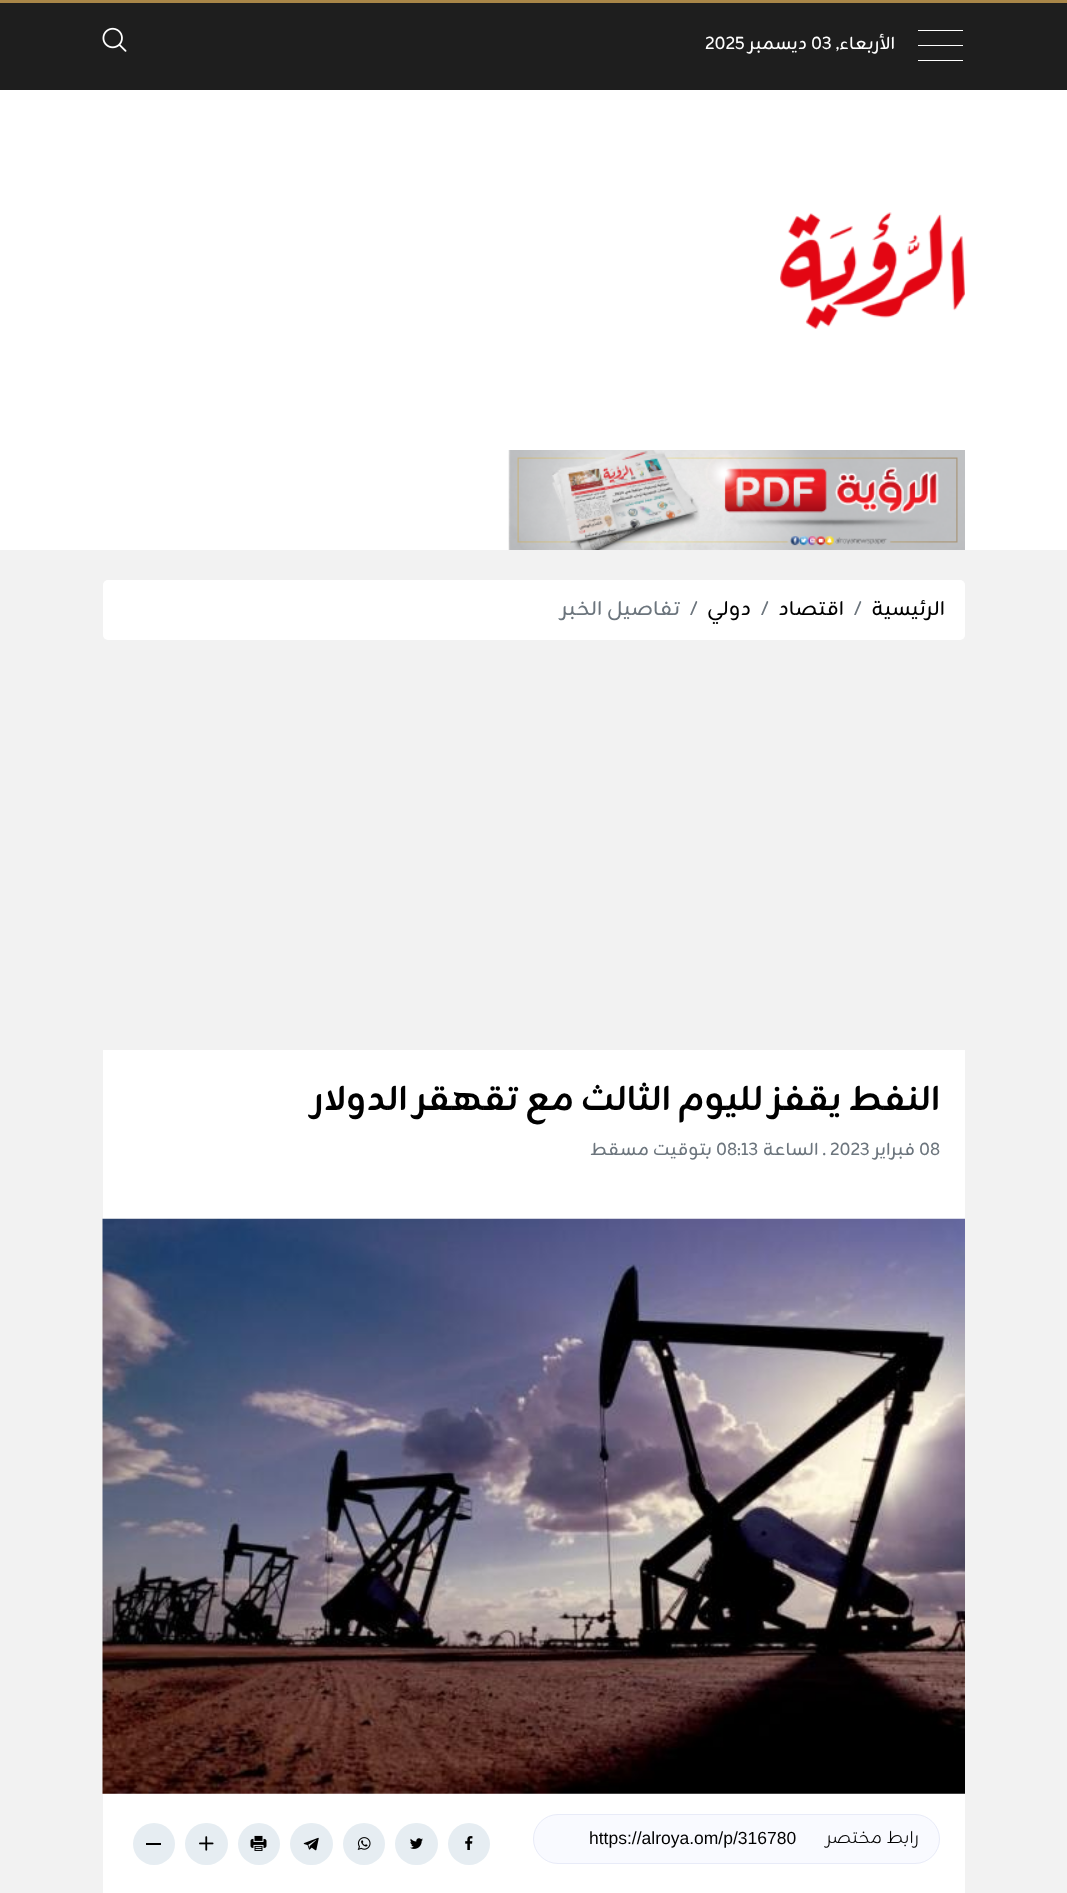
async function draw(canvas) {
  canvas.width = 1067;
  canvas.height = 1893;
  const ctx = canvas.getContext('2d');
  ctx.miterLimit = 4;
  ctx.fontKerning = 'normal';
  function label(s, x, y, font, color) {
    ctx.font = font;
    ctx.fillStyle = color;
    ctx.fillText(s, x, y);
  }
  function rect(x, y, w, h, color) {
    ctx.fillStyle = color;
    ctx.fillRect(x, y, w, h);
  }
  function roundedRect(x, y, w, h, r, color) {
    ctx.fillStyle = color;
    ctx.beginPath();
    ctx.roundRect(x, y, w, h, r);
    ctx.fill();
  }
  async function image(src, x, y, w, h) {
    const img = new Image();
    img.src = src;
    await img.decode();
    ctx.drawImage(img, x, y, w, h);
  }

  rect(0, 0, 1067, 1893, '#f2f2f2');
  rect(0, 3, 1067, 87, '#1e1e1e');
  rect(0, 0, 1067, 3, '#a98648');
  rect(918, 45, 45, 1, '#fff');
  rect(918, 30, 45, 1, '#fff');
  rect(918, 60, 45, 1, '#fff');
  ctx.direction = 'rtl';
  label('الأربعاء,', 895, 49, '17.5px Zain', '#fff');
  ctx.direction = 'ltr';
  label('03', 811, 49, '17.5px Zain', '#fff');
  ctx.direction = 'rtl';
  label('ديسمبر', 807, 49, '17.5px Zain', '#fff');
  ctx.direction = 'ltr';
  label('2025', 705, 49, '17.5px Zain', '#fff');
  await image('assets/img1.png', 102, 27, 25, 25);
  rect(0, 90, 1067, 460, '#fff');
  await image('assets/img2.png', 780, 212, 185, 117);
  await image('assets/img3.png', 508, 450, 457, 100);
  roundedRect(103, 580, 862, 60, 5, '#fff');
  ctx.direction = 'rtl';
  label('الرئيسية', 945, 615, '20px Zain', '#000');
  ctx.direction = 'ltr';
  label('/', 854, 615, '20px Zain', '#6c757d');
  ctx.direction = 'rtl';
  label('اقتصاد', 844, 615, '20px Zain', '#000');
  ctx.direction = 'ltr';
  label('/', 761, 615, '20px Zain', '#6c757d');
  ctx.direction = 'rtl';
  label('دولي', 751, 615, '20px Zain', '#000');
  ctx.direction = 'ltr';
  label('/', 690, 615, '20px Zain', '#6c757d');
  ctx.direction = 'rtl';
  label('تفاصيل الخبر', 680, 615, '20px Zain', '#6c757d');
  rect(103, 1050, 862, 843, '#fff');
  label('النفط يقفز لليوم الثالث مع تقهقر الدولار', 940, 1110, 'bold 35px Zain', '#000');
  ctx.direction = 'ltr';
  label('08', 919, 1155, '17.5px Zain', '#6c757d');
  ctx.direction = 'rtl';
  label('فبراير', 915, 1155, '17.5px Zain', '#6c757d');
  ctx.direction = 'ltr';
  label('2023', 830, 1155, '17.5px Zain', '#6c757d');
  ctx.direction = 'rtl';
  label('. الساعة', 826, 1155, '17.5px Zain', '#6c757d');
  ctx.direction = 'ltr';
  label('08:13', 716, 1155, '17.5px Zain', '#6c757d');
  ctx.direction = 'rtl';
  label('بتوقيت مسقط', 712, 1155, '17.5px Zain', '#6c757d');
  await image('assets/img4.png', 102, 1218, 863, 576);
  ctx.fillStyle = '#f9faff';
  ctx.beginPath();
  ctx.roundRect(533.5, 1814.5, 406, 49, 24.5);
  ctx.fill();
  ctx.strokeStyle = '#e8ebf8';
  ctx.stroke();
  label('رابط مختصر', 919, 1843, '300 17.5px Zain', '#000');
  ctx.direction = 'ltr';
  label('https://alroya.om/p/316780', 589, 1844, '17.5px Liberation Sans', '#000');
  ctx.fillStyle = '#e6edf2';
  ctx.beginPath();
  ctx.arc(469, 1844, 21, 0, 2 * Math.PI);
  ctx.fill();
  await image('assets/img5.png', 465, 1836, 8, 14);
  roundedRect(395, 1823, 43, 42, 21, '#e6edf2');
  await image('assets/img6.png', 410, 1838, 13, 11);
  ctx.beginPath();
  ctx.arc(364, 1844, 21, 0, 2 * Math.PI);
  ctx.fill();
  await image('assets/img7.png', 357, 1837, 14, 13);
  roundedRect(290, 1823, 43, 42, 21, '#e6edf2');
  await image('assets/img8.png', 303, 1837, 16, 14);
  ctx.beginPath();
  ctx.arc(259, 1844, 21, 0, 2 * Math.PI);
  ctx.fill();
  await image('assets/img9.png', 250, 1835, 17, 16);
  roundedRect(185, 1823, 43, 42, 21, '#e6edf2');
  await image('assets/img10.png', 199, 1836, 15, 15);
  ctx.beginPath();
  ctx.arc(154, 1844, 21, 0, 2 * Math.PI);
  ctx.fill();
  rect(146, 1843, 15, 2, '#000');
}

draw(document.querySelector('canvas'));
